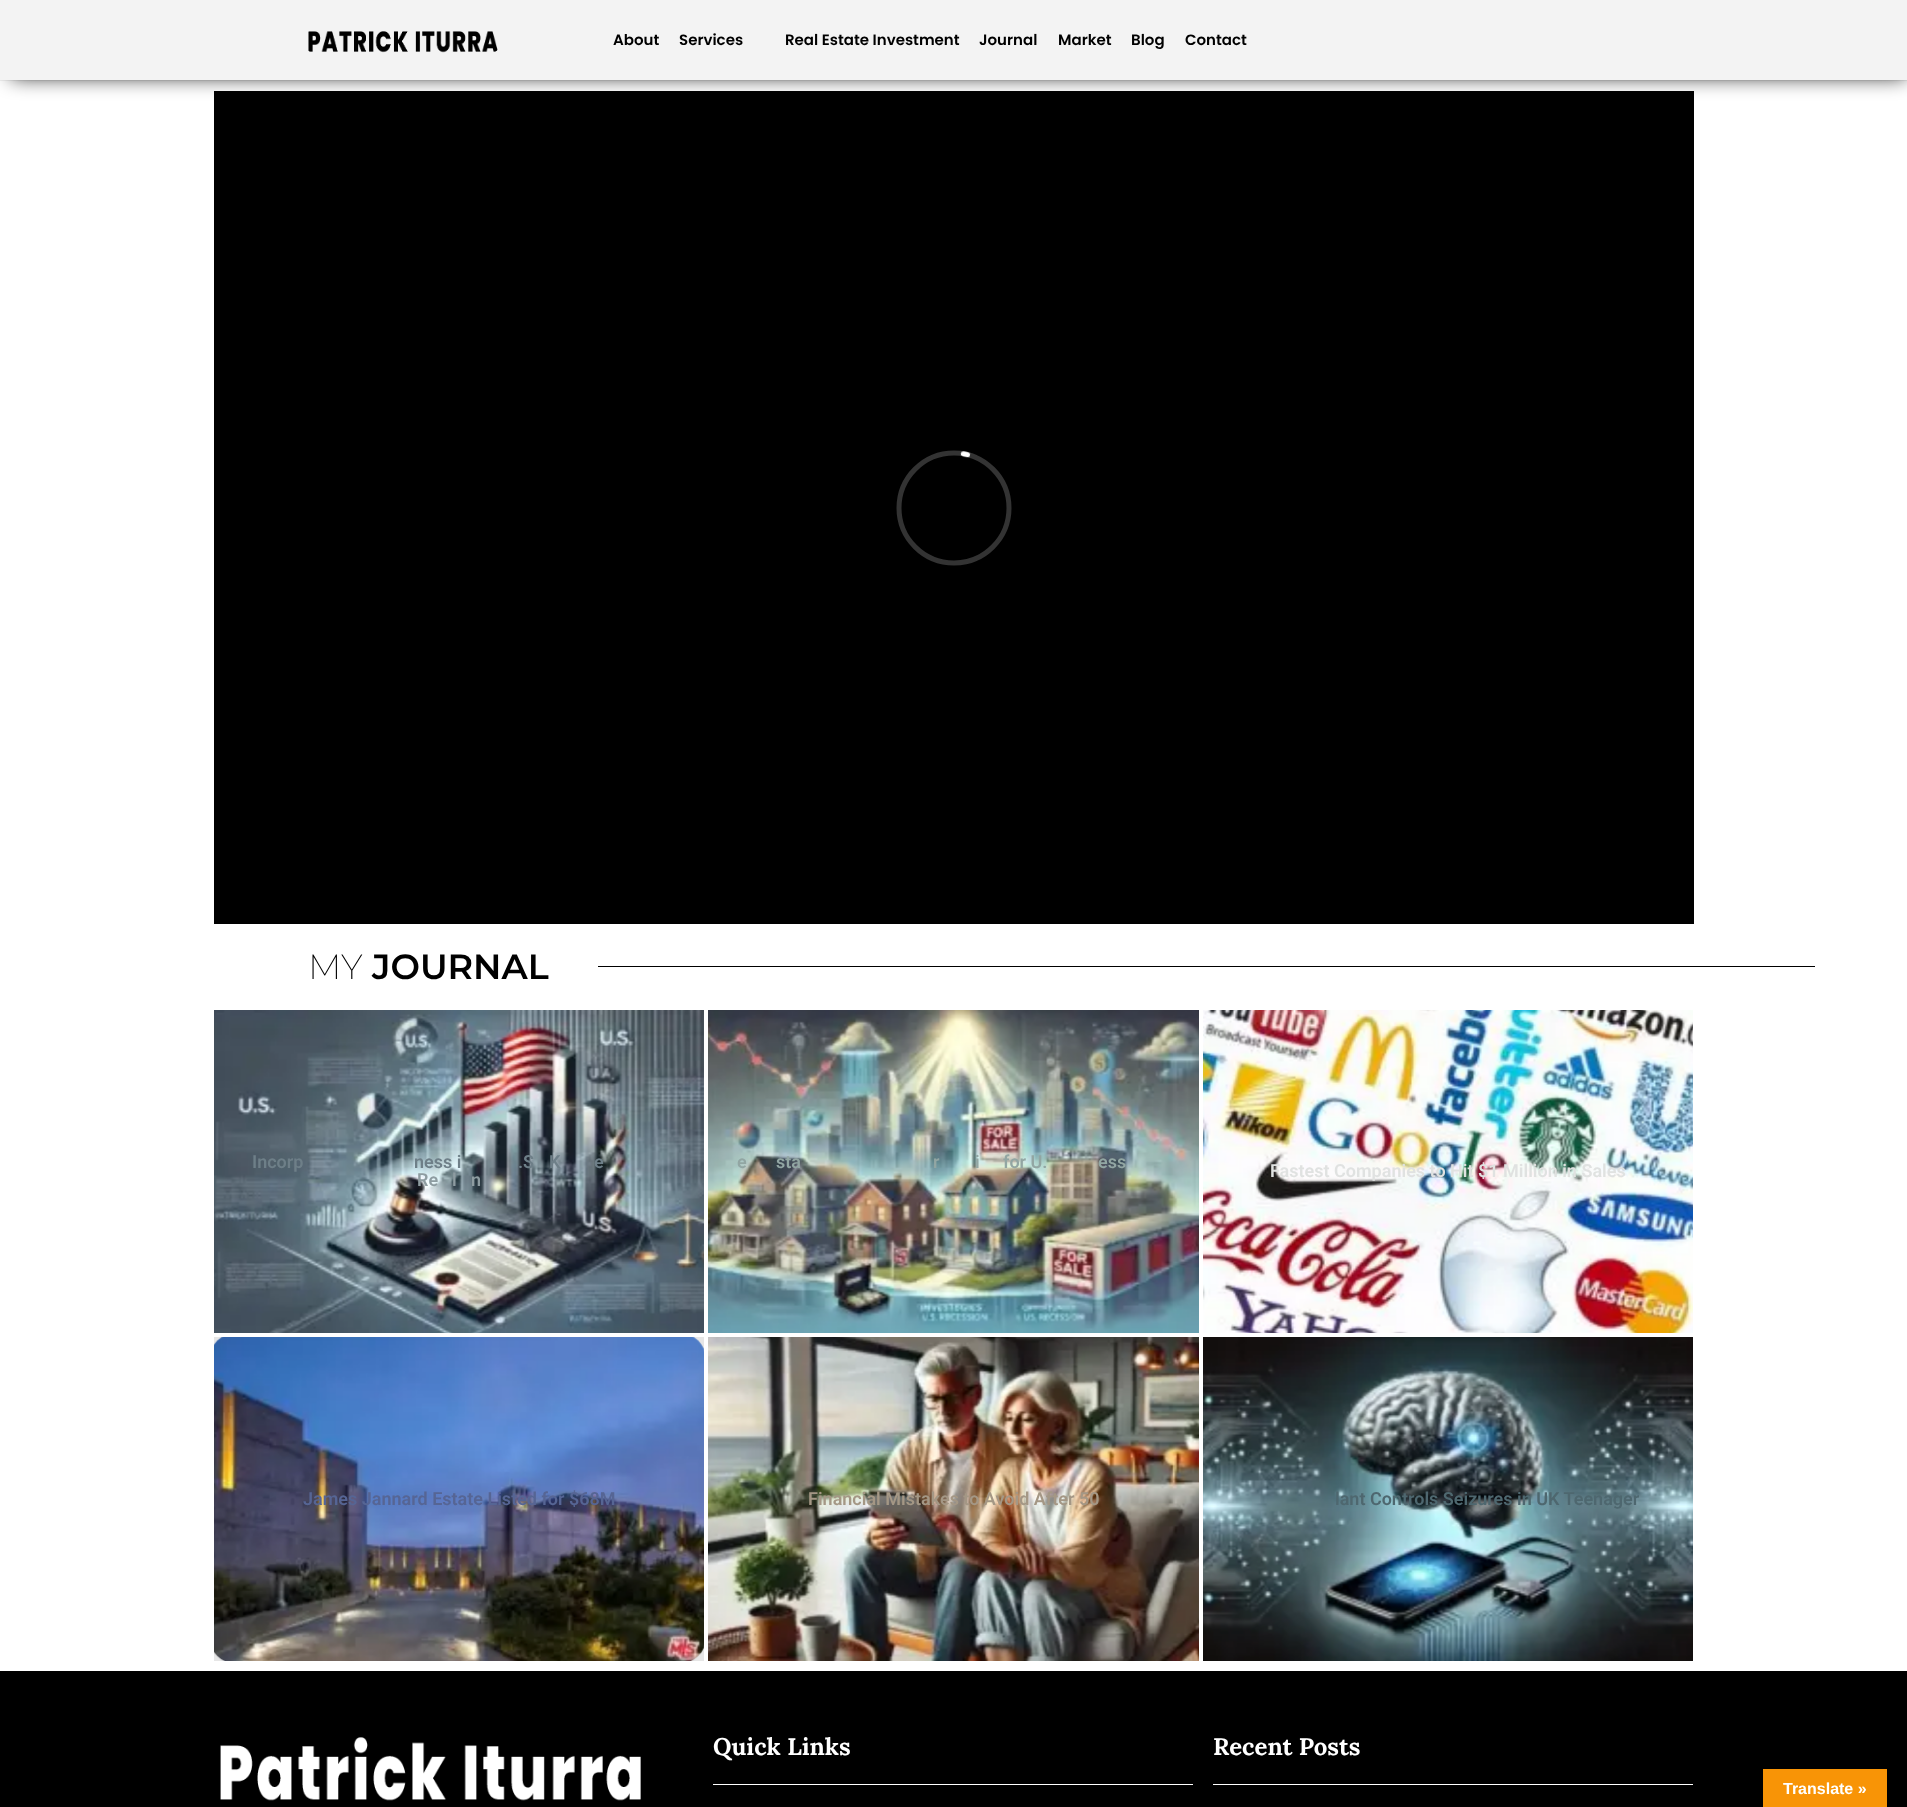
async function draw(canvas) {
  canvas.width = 1907;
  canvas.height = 1807;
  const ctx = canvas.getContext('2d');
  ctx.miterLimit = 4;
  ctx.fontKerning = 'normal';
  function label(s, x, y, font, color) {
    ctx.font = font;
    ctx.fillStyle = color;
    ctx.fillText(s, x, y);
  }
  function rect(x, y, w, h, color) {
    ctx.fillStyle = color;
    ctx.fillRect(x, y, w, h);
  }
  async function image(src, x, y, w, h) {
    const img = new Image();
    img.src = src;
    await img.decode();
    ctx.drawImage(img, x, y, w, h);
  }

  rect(0, 0, 1907, 1807, '#fff');
  rect(0, 80, 1907, 1, '#f1f1f1');
  rect(214, 91, 1480, 833, '#000');
  ctx.fillStyle = '#000000db';
  ctx.filter = 'blur(10px)';
  ctx.beginPath();
  ctx.rect(11, 9, 1895, 68);
  ctx.fill();
  ctx.filter = 'none';
  rect(0, 0, 1907, 80, '#f3f3f3');
  await image('assets/img1.png', 308, 31, 190, 22);
  label('About', 613, 45, '600 15px Poppins', '#000');
  label('Services', 679, 45, '600 15px Poppins', '#000');
  label('Real Estate Investment', 785, 45, '600 15px Poppins', '#000');
  label('Journal', 979, 45, '600 15px Poppins', '#000');
  label('Market', 1058, 45, '600 15px Poppins', '#000');
  label('Blog', 1131, 45, '600 15px Poppins', '#000');
  label('Contact', 1185, 45, '600 15px Poppins', '#000');
  await image('assets/img2.png', 896, 450, 116, 116);
  label('MY', 308, 979, '200 35px Montserrat', '#000');
  label('JOURNAL', 372, 979, '600 35px Montserrat', '#000');
  rect(598, 966, 1217, 1, '#000');
  await image('assets/img3.png', 214, 1010, 490, 323);
  label('Incorp', 252, 1168, '600 18px Roboto', '#6e7f88');
  label('ness i', 414, 1168, '600 18px Roboto', '#6e7f88');
  label('.S', 518, 1168, '600 18px Roboto', '#6e7f88');
  label('K', 549, 1168, '600 18px Roboto', '#6e7f88');
  label('e', 594, 1168, '600 18px Roboto', '#6e7f88');
  label('Re', 417, 1186, '600 18px Roboto', '#8e9ca1');
  label('l', 452, 1186, '600 18px Roboto', '#8e9ca1');
  label('n', 471, 1186, '600 18px Roboto', '#8e9ca1');
  await image('assets/img4.png', 708, 1010, 491, 323);
  label('e', 737, 1168, '600 18px Roboto', '#92a6a3');
  label('sta', 776, 1168, '600 18px Roboto', '#92a6a3');
  label('r', 933, 1168, '600 18px Roboto', '#92a6a3');
  label('i', 975, 1168, '600 18px Roboto', '#92a6a3');
  label('for U.', 1003, 1168, '600 18px Roboto', '#92a6a3');
  label('ess', 1098, 1168, '600 18px Roboto', '#92a6a3');
  await image('assets/img5.png', 1203, 1010, 490, 323);
  label('Fastest Companies to Hit $1 Million in Sales', 1270, 1177, '600 18px Roboto', '#e0e2e1');
  rect(214, 1337, 490, 324, '#e6e6e6');
  await image('assets/img6.png', 214, 1337, 490, 324);
  label('James Jannard Estate Listed for $68M', 303, 1505, '600 18px Roboto', '#566594');
  await image('assets/img7.png', 708, 1337, 491, 324);
  label('Financial Mistakes to Avoid After 50', 808, 1505, '600 18px Roboto', '#a49785');
  await image('assets/img8.png', 1203, 1337, 490, 324);
  label('lant Controls Seizures in UK Teenager', 1335, 1505, '600 18px Roboto', '#4e676f');
  rect(0, 1671, 1907, 136, '#000');
  await image('assets/img9.png', 220, 1737, 421, 64);
  label('Quick Links', 713, 1755, 'bold 24px Lora', '#fff');
  rect(713, 1784, 480, 1, '#fff');
  label('Recent Posts', 1213, 1755, 'bold 24px Lora', '#fff');
  rect(1213, 1784, 480, 1, '#fff');
  rect(1763, 1769, 124, 38, '#f89406');
  label('Translate »', 1783, 1794, 'bold 16px Liberation Sans', '#fff');
}

draw(document.querySelector('canvas'));
